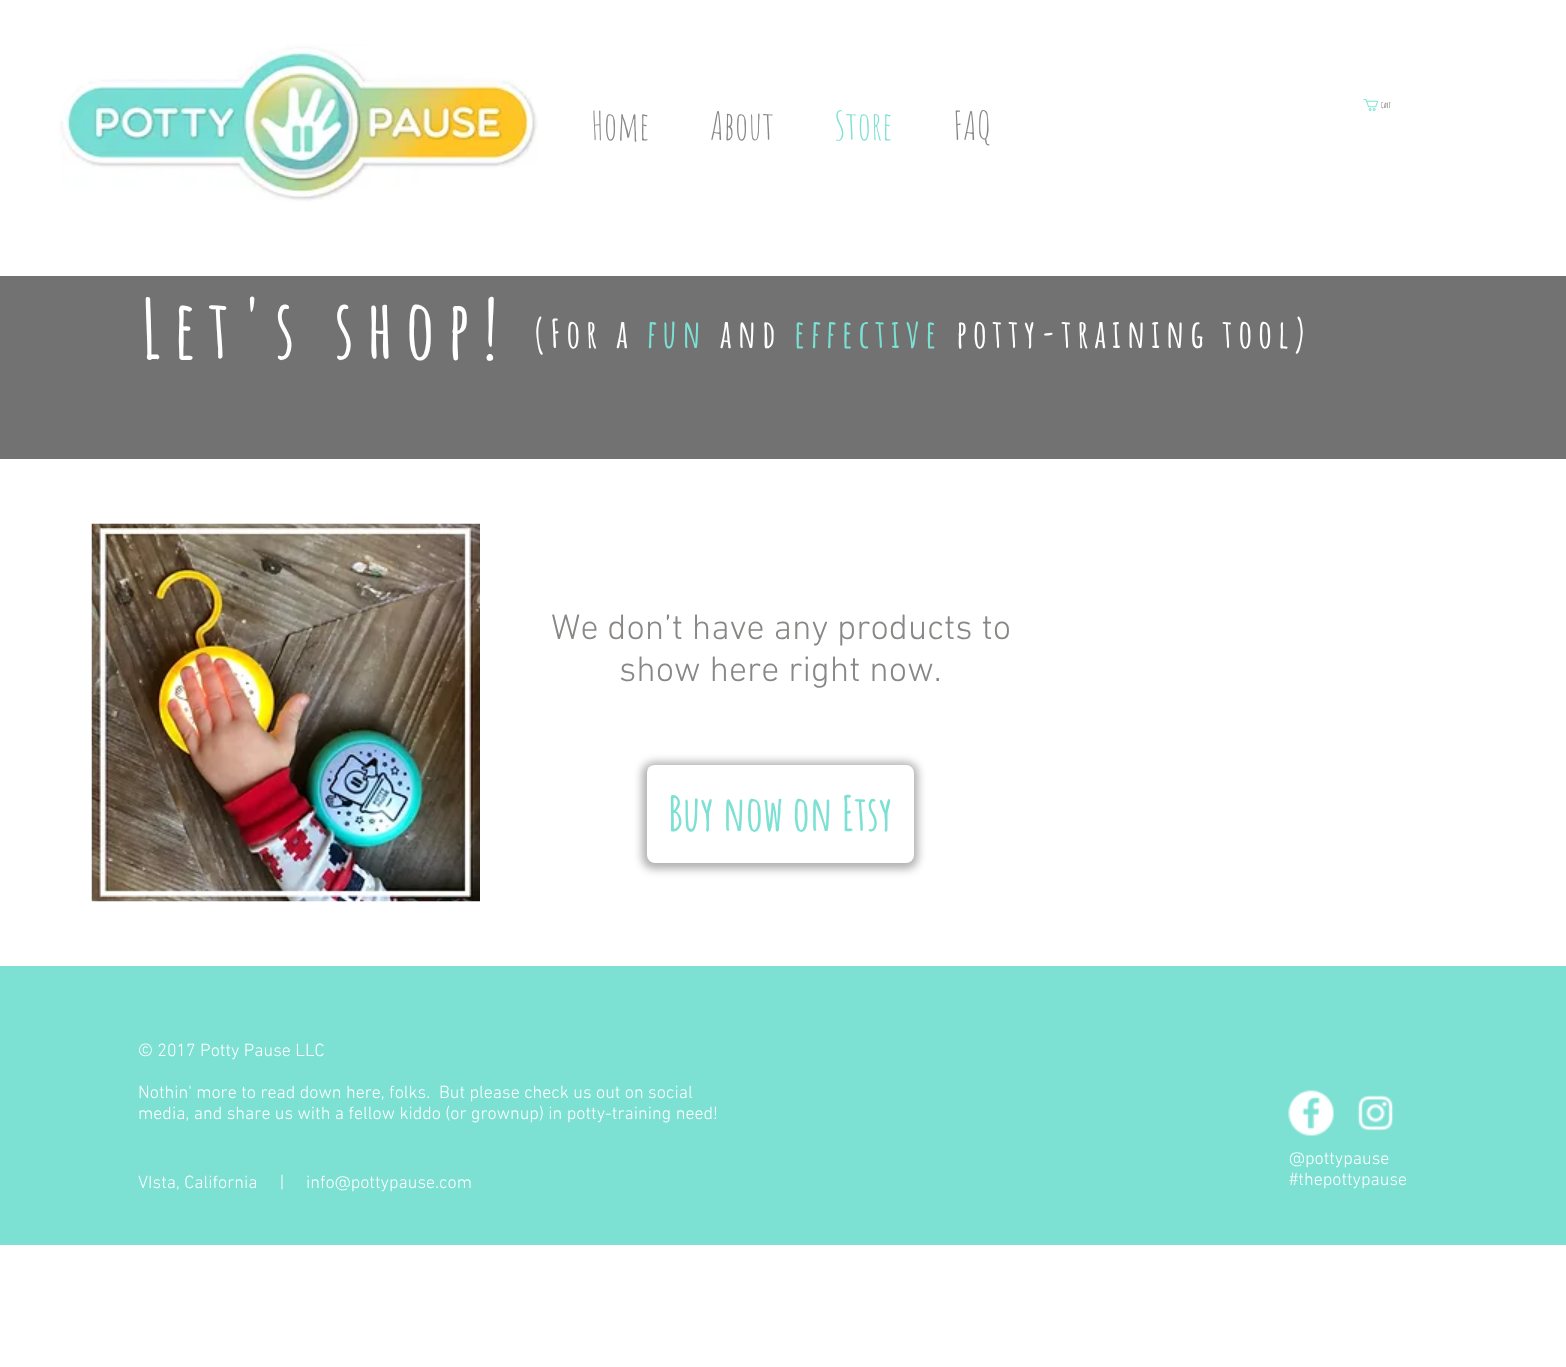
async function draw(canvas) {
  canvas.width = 1566;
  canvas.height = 1367;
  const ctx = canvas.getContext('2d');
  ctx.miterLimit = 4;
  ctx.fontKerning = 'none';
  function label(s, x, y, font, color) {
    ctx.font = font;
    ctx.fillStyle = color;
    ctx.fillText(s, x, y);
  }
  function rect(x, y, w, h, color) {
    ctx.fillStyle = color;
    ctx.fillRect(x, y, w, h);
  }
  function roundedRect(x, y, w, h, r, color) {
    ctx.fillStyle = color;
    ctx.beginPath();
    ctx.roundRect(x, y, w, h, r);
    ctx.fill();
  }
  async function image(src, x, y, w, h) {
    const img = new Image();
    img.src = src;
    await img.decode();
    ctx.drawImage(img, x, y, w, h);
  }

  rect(0, 0, 1566, 1367, '#fff');
  await image('assets/img1.png', 59, 44, 479, 158);
  await image('assets/img2.png', 1363, 99, 16, 12);
  label('Cart', 1381, 108, '8px Amatic SC', '#000');
  label('Home', 591, 140, '39px Amatic SC', '#888785');
  label('About', 710, 140, '39px Amatic SC', '#888785');
  label('Store', 834, 140, '39px Amatic SC', '#7ce0d3');
  label('FAQ', 953, 140, '39px Amatic SC', '#888785');
  rect(0, 276, 1566, 183, '#727272');
  ctx.letterSpacing = '12.2px';
  label('Let\'s shop!', 141, 359, 'bold 81px Amatic SC', '#fff');
  ctx.letterSpacing = '5.8px';
  label('(For a', 533, 348, 'bold 39px Amatic SC', '#fff');
  label('fun', 647, 348, 'bold 39px Amatic SC', '#7ce0d3');
  label('and', 720, 348, 'bold 39px Amatic SC', '#fff');
  label('effective', 794, 348, 'bold 39px Amatic SC', '#7ce0d3');
  label('potty-training tool)', 956, 348, 'bold 39px Amatic SC', '#fff');
  await image('assets/img3.png', 91, 523, 389, 379);
  ctx.letterSpacing = '0px';
  label('We don’t have any products to', 551, 639, '300 36px "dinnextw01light"', '#888785');
  label('show here right now.', 619, 681, '300 36px "dinnextw01light"', '#888785');
  ctx.fillStyle = '#0000004f';
  ctx.filter = 'blur(4px)';
  ctx.beginPath();
  ctx.roundRect(642, 762, 276, 107, 12);
  ctx.fill();
  ctx.filter = 'none';
  roundedRect(647, 765, 267, 98, 8, '#fff');
  await image('assets/img4.png', 647, 765, 5, 4);
  label('Buy now on Etsy', 668, 831, 'bold 48px Amatic SC', '#7ce0d3');
  rect(0, 966, 1566, 279, '#7ce0d3');
  label('© 2017 Potty Pause LLC', 138, 1056, '300 18px "dinnextw01light"', '#fff');
  label('Nothin\' more to read down here, folks.  But please check us out on social', 138, 1098, '300 18px "dinnextw01light"', '#fff');
  label('media, and share us with a fellow kiddo (or grownup) in potty-training need!', 138, 1119, '300 18px "dinnextw01light"', '#fff');
  await image('assets/img5.png', 1288, 1090, 46, 46);
  await image('assets/img6.png', 1357, 1095, 37, 36);
  label('VIsta, California     |', 138, 1188, '300 18px "dinnextw01light"', '#fff');
  label('info@pottypause.com', 306, 1188, '300 18px "dinnextw01light"', '#fff');
  label('@pottypause', 1289, 1164, '300 18px "dinnextw01light"', '#fff');
  label('#thepottypause', 1289, 1185, '300 18px "dinnextw01light"', '#fff');
}

draw(document.querySelector('canvas'));
